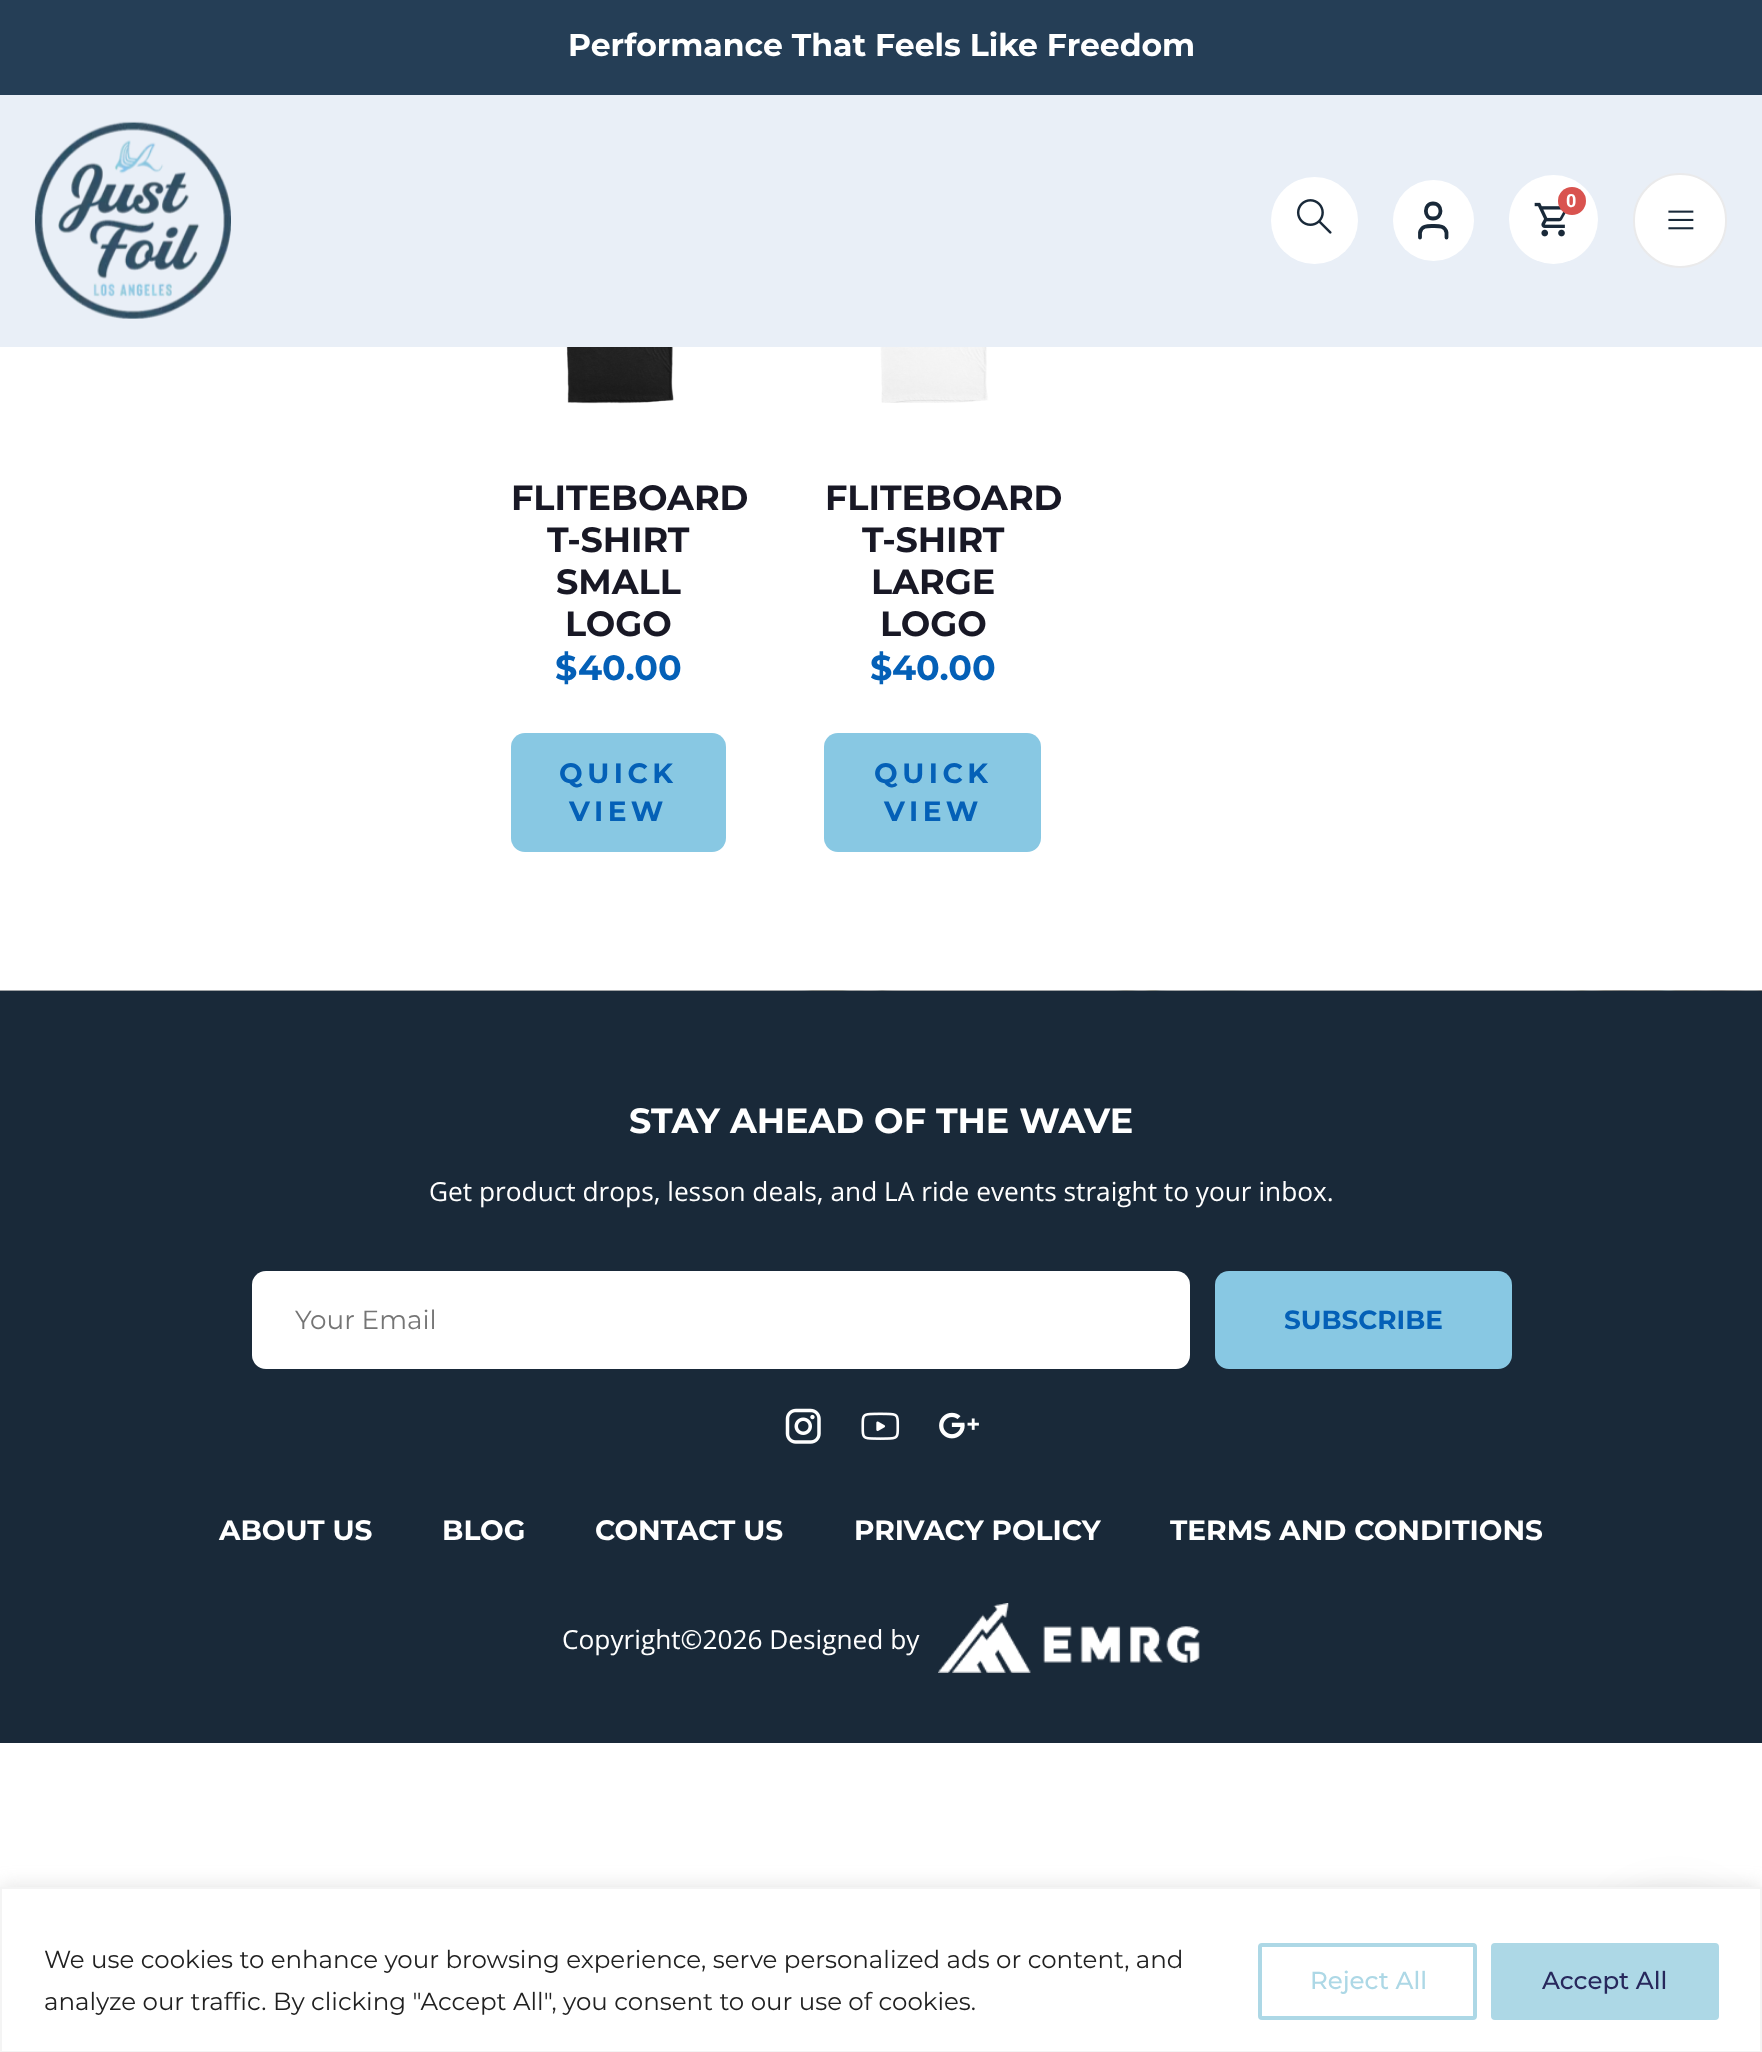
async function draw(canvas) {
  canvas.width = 1762;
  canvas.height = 2052;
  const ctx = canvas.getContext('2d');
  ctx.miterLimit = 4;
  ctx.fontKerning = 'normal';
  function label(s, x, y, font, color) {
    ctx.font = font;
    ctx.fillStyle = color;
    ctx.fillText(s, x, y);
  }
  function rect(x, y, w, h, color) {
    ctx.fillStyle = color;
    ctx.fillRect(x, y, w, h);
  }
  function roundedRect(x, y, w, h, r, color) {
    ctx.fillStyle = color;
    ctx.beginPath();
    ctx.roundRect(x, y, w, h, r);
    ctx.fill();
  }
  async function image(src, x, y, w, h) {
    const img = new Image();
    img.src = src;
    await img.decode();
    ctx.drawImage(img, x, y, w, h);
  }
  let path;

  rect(0, 0, 1762, 2052, '#fff');
  rect(0, 0, 1762, 95, '#253e56');
  label('Performance That Feels Like Freedom', 568, 56, 'bold 31.5px Montserrat', '#fff');
  rect(0, 95, 1762, 252, '#e9eff7');
  await image('assets/img1.png', 35, 121, 196, 198);
  ctx.fillStyle = '#fff';
  ctx.beginPath();
  ctx.arc(1314.5, 220.5, 43.5, 0, 2 * Math.PI);
  ctx.fill();
  await image('assets/img2.png', 1296, 199, 36, 35);
  ctx.beginPath();
  ctx.arc(1433.5, 220.5, 40.5, 0, 2 * Math.PI);
  ctx.fill();
  path = new Path2D('M1446.5 237.5V232.5C1445 225.5 1438.5 226 1433 226C1428 226 1421.5 225.5 1420 232.5V237.5M1433 218.5C1443 218.5 1443 203.5 1433 203.5C1423.5 203.5 1423.5 218.5 1433 218.5Z');
  ctx.strokeStyle = '#192939';
  ctx.lineWidth = 3.8;
  ctx.lineCap = 'round';
  ctx.lineJoin = 'round';
  ctx.stroke(path);
  ctx.beginPath();
  ctx.arc(1553.5, 219.5, 44.5, 0, 2 * Math.PI);
  ctx.fill();
  await image('assets/img3.png', 1534, 202, 32, 35);
  ctx.fillStyle = '#d9534f';
  ctx.beginPath();
  ctx.arc(1572, 201, 14, 0, 2 * Math.PI);
  ctx.fill();
  label('0', 1566, 207, 'bold 18px Roboto', '#fff');
  ctx.beginPath();
  ctx.roundRect(1634, 174, 92, 93, 46);
  ctx.fill();
  ctx.strokeStyle = '#eaeaeb';
  ctx.lineWidth = 2;
  ctx.lineJoin = 'miter';
  ctx.stroke();
  await image('assets/img4.png', 1668, 210, 26, 20);
  await image('assets/img5.png', 566, 347, 108, 57);
  label('FLITEBOARD', 511, 510, 'bold 35px Montserrat', '#181825');
  label('T-SHIRT', 547, 552, 'bold 35px Montserrat', '#181825');
  label('SMALL', 556, 594, 'bold 35px Montserrat', '#181825');
  label('LOGO', 565, 636, 'bold 35px Montserrat', '#181825');
  label('$', 555, 680, 'bold 35px Montserrat', '#0460b7');
  label('40.00', 578, 680, 'bold 35px Montserrat', '#0460b7');
  roundedRect(511, 733, 215, 119, 14, '#88c8e3');
  ctx.letterSpacing = '4.5px';
  label('QUICK', 559, 783, 'bold 28px Montserrat', '#0460b7');
  label('VIEW', 569, 821, 'bold 28px Montserrat', '#0460b7');
  await image('assets/img6.png', 880, 347, 109, 56);
  ctx.letterSpacing = '0px';
  label('FLITEBOARD', 825, 510, 'bold 35px Montserrat', '#181825');
  label('T-SHIRT', 862, 552, 'bold 35px Montserrat', '#181825');
  label('LARGE', 871, 594, 'bold 35px Montserrat', '#181825');
  label('LOGO', 880, 636, 'bold 35px Montserrat', '#181825');
  label('$', 870, 680, 'bold 35px Montserrat', '#0460b7');
  label('40.00', 892, 680, 'bold 35px Montserrat', '#0460b7');
  roundedRect(824, 733, 217, 119, 14, '#88c8e3');
  ctx.letterSpacing = '4.5px';
  label('QUICK', 874, 783, 'bold 28px Montserrat', '#0460b7');
  label('VIEW', 884, 821, 'bold 28px Montserrat', '#0460b7');
  await image('assets/img7.png', 0, 990, 1762, 1);
  rect(0, 991, 1762, 752, '#192939');
  ctx.letterSpacing = '0px';
  label('STAY AHEAD OF THE WAVE', 629, 1133, 'bold 35px Montserrat', '#fff');
  label('Get product drops, lesson deals, and LA ride events straight to your inbox.', 429, 1201, '26.25px Open Sans', '#fff');
  roundedRect(252, 1271, 938, 98, 14, '#fff');
  label('Your Email', 295, 1329, '26.25px Montserrat', '#757575');
  roundedRect(1215, 1271, 297, 98, 14, '#88c8e3');
  label('SUBSCRIBE', 1284, 1329, 'bold 26.25px Montserrat', '#0460b7');
  await image('assets/img8.png', 785, 1408, 36, 36);
  await image('assets/img9.png', 861, 1412, 39, 28);
  await image('assets/img10.png', 939, 1412, 40, 27);
  label('ABOUT US', 219, 1540, 'bold 28px Montserrat', '#fff');
  label('BLOG', 442, 1540, 'bold 28px Montserrat', '#fff');
  label('CONTACT US', 595, 1540, 'bold 28px Montserrat', '#fff');
  label('PRIVACY POLICY', 854, 1540, 'bold 28px Montserrat', '#fff');
  label('TERMS AND CONDITIONS', 1170, 1540, 'bold 28px Montserrat', '#fff');
  label('Copyright©2026 Designed by', 562, 1649, '26.25px Open Sans', '#fff');
  await image('assets/img11.png', 938, 1603, 262, 70);
  ctx.fillStyle = '#00000029';
  ctx.filter = 'blur(28px)';
  ctx.beginPath();
  ctx.roundRect(1622, 1909, 105, 105, 52.5);
  ctx.fill();
  ctx.filter = 'none';
  ctx.fillStyle = '#acabab4d';
  ctx.filter = 'blur(9px)';
  ctx.beginPath();
  ctx.rect(0, 1885, 1762, 166);
  ctx.fill();
  ctx.filter = 'none';
  ctx.fillStyle = '#fff';
  ctx.beginPath();
  ctx.rect(1, 1888, 1760, 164);
  ctx.fill();
  ctx.strokeStyle = '#f4f4f4';
  ctx.stroke();
  label('We use cookies to enhance your browsing experience, serve personalized ads or content, and', 44, 1968, '24.5px Montserrat', '#212121');
  label('analyze our traffic. By clicking "Accept All", you consent to our use of cookies.', 44, 2010, '24.5px Montserrat', '#212121');
  ctx.beginPath();
  ctx.roundRect(1260, 1945, 215, 73, 2);
  ctx.strokeStyle = '#add8e6';
  ctx.lineWidth = 4;
  ctx.stroke();
  label('Reject All', 1310, 1989, '500 24.5px Montserrat', '#add8e6');
  ctx.beginPath();
  ctx.roundRect(1493, 1945, 224, 73, 2);
  ctx.fill();
  ctx.stroke();
  label('Accept All', 1542, 1989, '500 24.5px Montserrat', '#27285c');
}

draw(document.querySelector('canvas'));
